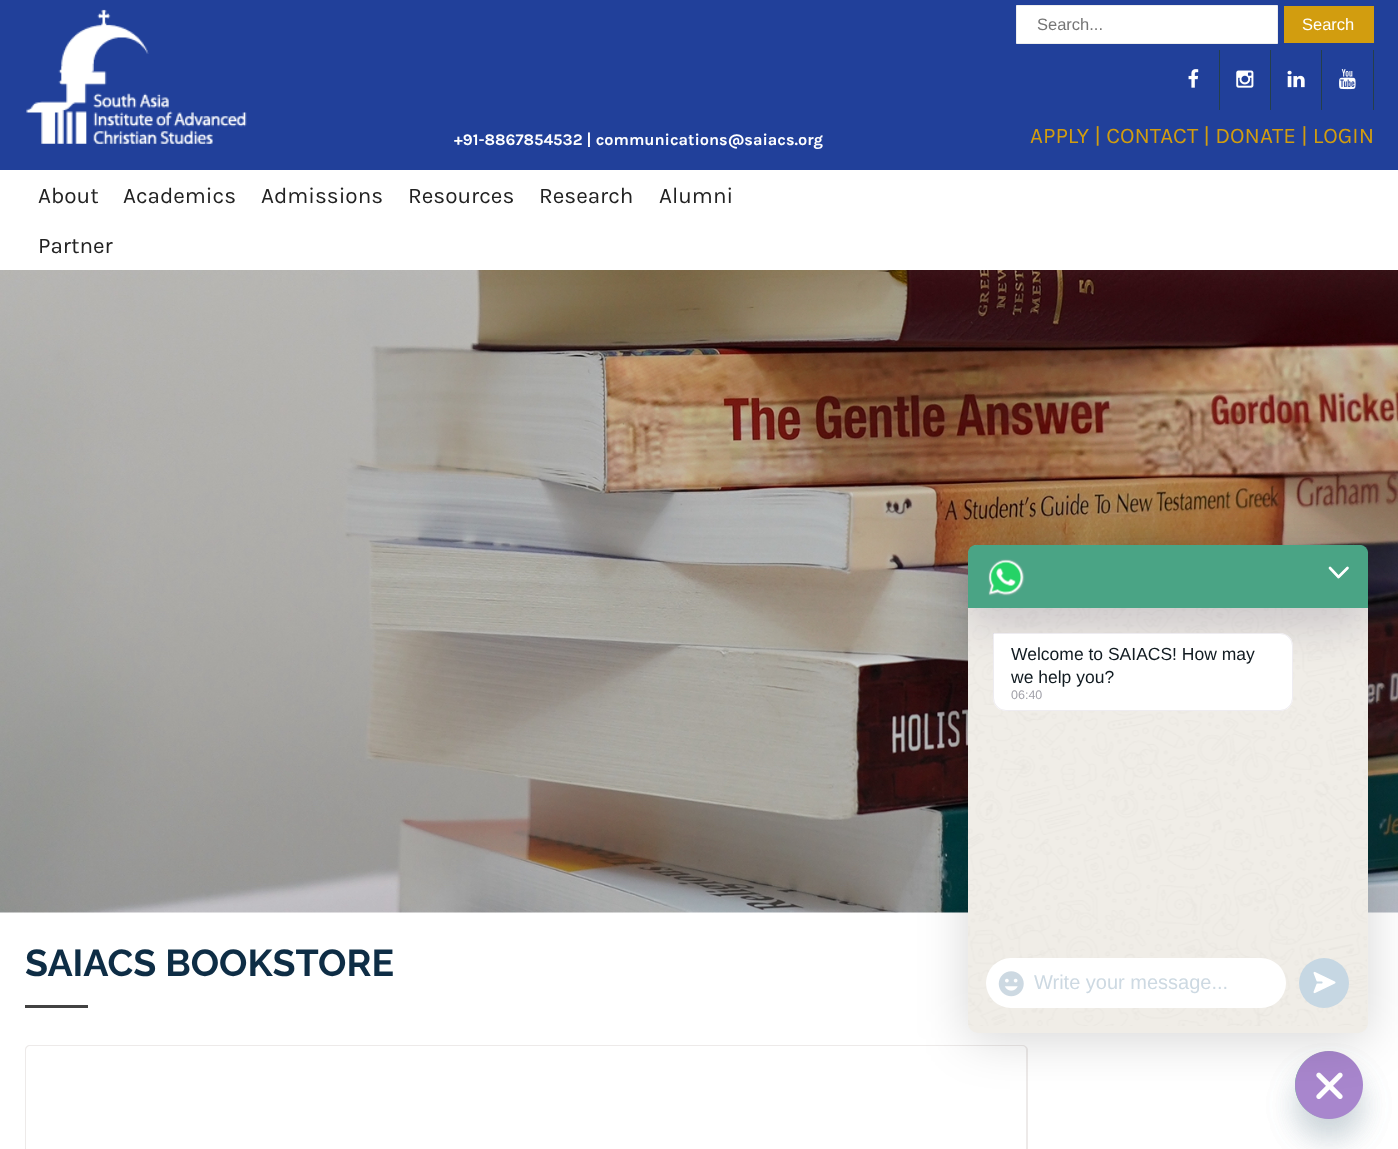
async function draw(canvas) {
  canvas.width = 1398;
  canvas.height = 1149;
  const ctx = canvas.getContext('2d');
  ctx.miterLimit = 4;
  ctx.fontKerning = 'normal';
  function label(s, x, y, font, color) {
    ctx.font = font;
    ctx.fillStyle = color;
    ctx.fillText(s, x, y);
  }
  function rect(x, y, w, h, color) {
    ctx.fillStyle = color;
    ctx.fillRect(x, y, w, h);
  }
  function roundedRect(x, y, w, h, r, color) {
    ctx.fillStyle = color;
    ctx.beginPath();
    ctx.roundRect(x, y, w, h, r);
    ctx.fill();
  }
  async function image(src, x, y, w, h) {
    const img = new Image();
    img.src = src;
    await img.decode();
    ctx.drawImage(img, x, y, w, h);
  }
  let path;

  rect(0, 0, 1398, 1149, '#fff');
  rect(0, 0, 1398, 170, '#21409a');
  await image('assets/img1.png', 26, 9, 221, 135);
  label('+91-8867854532 | communications@saiacs.org', 454, 145, 'bold 16.25px Karla', '#fff');
  ctx.beginPath();
  ctx.rect(1016.5, 5.5, 261, 38);
  ctx.fill();
  ctx.strokeStyle = '#eee';
  ctx.stroke();
  label('Search...', 1037, 30, '16.5px Liberation Sans', '#757575');
  rect(1284, 6, 90, 37, '#d29d0f');
  label('Search', 1302, 30, '16.5px Liberation Sans', '#fff');
  rect(1219, 50, 1, 60, '#253f4a');
  await image('assets/img2.png', 1188, 69, 11, 19);
  rect(1270, 50, 1, 60, '#253f4a');
  await image('assets/img3.png', 1236, 70, 18, 18);
  rect(1321, 50, 1, 60, '#253f4a');
  await image('assets/img4.png', 1287, 70, 18, 18);
  rect(1373, 50, 1, 60, '#253f4a');
  await image('assets/img5.png', 1339, 69, 17, 21);
  label('APPLY | CONTACT | DONATE | LOGIN', 1030, 143, '22.5px Karla', '#d29d0f');
  label('About', 38, 203, '22.5px Karla', '#222');
  label('Academics', 123, 203, '22.5px Karla', '#222');
  label('Admissions', 261, 203, '22.5px Karla', '#222');
  label('Resources', 408, 203, '22.5px Karla', '#222');
  label('Research', 539, 203, '22.5px Karla', '#222');
  label('Alumni', 659, 203, '22.5px Karla', '#222');
  label('Partner', 38, 253, '22.5px Karla', '#222');
  await image('assets/img6.png', 0, 270, 1398, 643);
  label('SAIACS BOOKSTORE', 25, 976, 'bold 37.5px Raleway', '#0e2d45');
  rect(25, 1005, 63, 3, '#424242');
  ctx.fillStyle = '#edeae9';
  path = new Path2D('M30 1045H1022C1025 1045 1028 1047 1028 1050V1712H25V1050C25 1047 27 1045 30 1045ZM30 1046H1022C1025 1046 1026 1048 1026 1050V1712H26V1050C26 1048 28 1046 30 1046Z');
  ctx.fill(path, 'evenodd');
  ctx.fillStyle = '#49687e29';
  ctx.filter = 'blur(15px)';
  ctx.beginPath();
  ctx.roundRect(1295, 1071, 68, 68, 34);
  ctx.fill();
  ctx.filter = 'none';
  await image('assets/img11.png', 1295, 1051, 55, 68);
  ctx.filter = 'blur(15px)';
  ctx.beginPath();
  ctx.roundRect(1295, 1071, 68, 68, 34);
  ctx.fill();
  ctx.filter = 'none';
  await image('assets/img12.png', 1295, 1051, 68, 68);
  ctx.fillStyle = '#00000029';
  ctx.filter = 'blur(25px)';
  ctx.beginPath();
  ctx.roundRect(968, 551, 400, 488, 8);
  ctx.fill();
  ctx.filter = 'none';
  roundedRect(968, 545, 400, 488, 10, '#f0ede7');
  await image('assets/img8.png', 968, 608, 399, 418);
  ctx.fillStyle = '#1a0e3529';
  ctx.filter = 'blur(20px)';
  ctx.beginPath();
  ctx.roundRect(968, 565, 400, 63, 8);
  ctx.fill();
  ctx.filter = 'none';
  ctx.fillStyle = '#4aa485';
  ctx.beginPath();
  ctx.roundRect(968, 545, 400, 63, [8, 8, 0, 0]);
  ctx.fill();
  await image('assets/img7.png', 988, 558, 37, 38);
  path = new Path2D('M1330 568L1338.5 577L1347.5 568');
  ctx.strokeStyle = '#fff';
  ctx.lineWidth = 2.7;
  ctx.lineCap = 'round';
  ctx.lineJoin = 'round';
  ctx.stroke(path);
  ctx.fillStyle = '#fff';
  ctx.beginPath();
  ctx.roundRect(993, 633, 300, 78, [0, 13, 13, 13]);
  ctx.fill();
  ctx.beginPath();
  ctx.roundRect(993.5, 633.5, 299, 77, [0, 12.5, 12.5, 12.5]);
  ctx.strokeStyle = '#22114714';
  ctx.lineWidth = 1;
  ctx.lineJoin = 'miter';
  ctx.stroke();
  label('Welcome to SAIACS! How may', 1011, 660, '17.5px Liberation Sans', '#111b21');
  label('we help you?', 1011, 683, '17.5px Liberation Sans', '#111b21');
  label('06:40', 1011, 699, '12.5px Liberation Sans', '#a1a1a9');
  roundedRect(986, 958, 300, 50, 25, '#fff');
  await image('assets/img9.png', 998, 971, 26, 26);
  label('Write your message...', 1034, 989, '20px Liberation Sans', '#cdd9e2');
  ctx.fillStyle = '#c6d7e3';
  ctx.beginPath();
  ctx.arc(1324, 983, 25, 0, 2 * Math.PI);
  ctx.fill();
  await image('assets/img10.png', 1313, 971, 23, 23);
}

draw(document.querySelector('canvas'));
